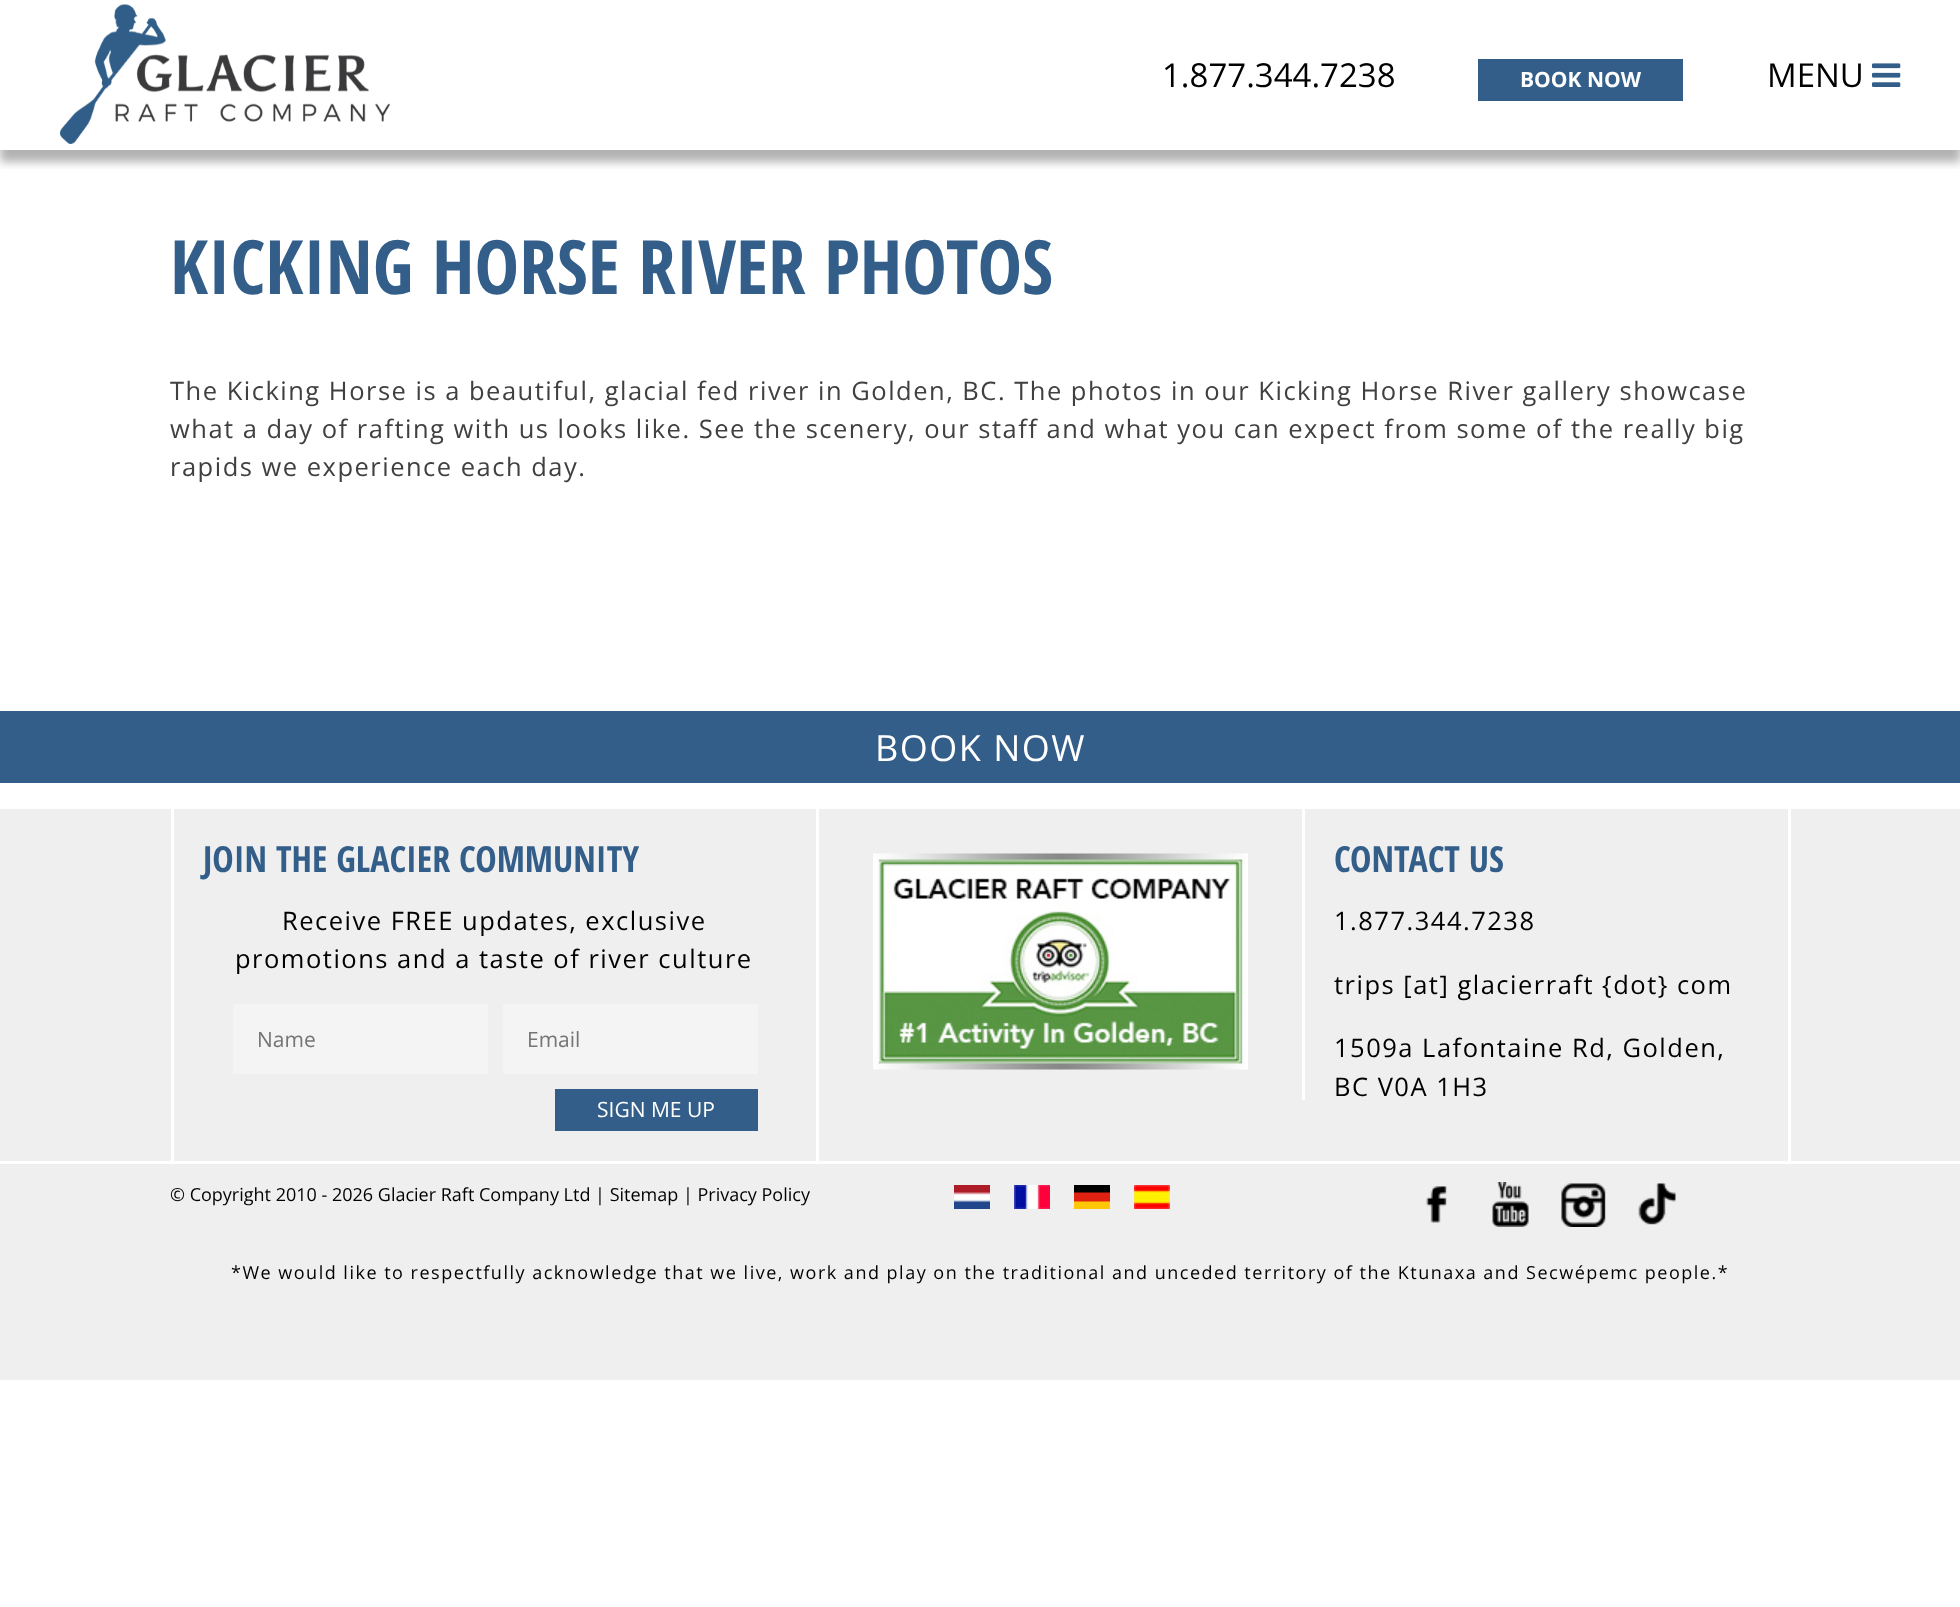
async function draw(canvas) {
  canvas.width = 1960;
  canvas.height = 1607;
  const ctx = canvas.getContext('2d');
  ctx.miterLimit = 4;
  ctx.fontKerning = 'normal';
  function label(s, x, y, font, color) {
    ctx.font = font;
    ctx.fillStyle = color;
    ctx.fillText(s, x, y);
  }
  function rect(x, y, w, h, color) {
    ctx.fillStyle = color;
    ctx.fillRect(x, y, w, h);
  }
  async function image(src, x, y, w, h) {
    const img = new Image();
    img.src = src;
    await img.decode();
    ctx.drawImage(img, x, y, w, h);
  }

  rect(0, 0, 1960, 1607, '#fff');
  ctx.save();
  ctx.beginPath();
  ctx.rect(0, 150, 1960, 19);
  ctx.clip();
  ctx.fillStyle = '#0000004d';
  ctx.filter = 'blur(5px)';
  ctx.beginPath();
  ctx.rect(0, 12, 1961, 150);
  ctx.fill();
  ctx.filter = 'none';
  ctx.restore();
  await image('assets/img1.png', 60, 4, 330, 140);
  label('1.877.344.7238', 1162, 87, '33px Open Sans', '#000');
  rect(1478, 59, 205, 42, '#325e89');
  label('BOOK NOW', 1520, 87, 'bold 21px Open Sans', '#fff');
  label('MENU', 1767, 87, '33px Open Sans', '#000');
  await image('assets/img2.png', 1872, 63, 29, 24);
  label('KICKING HORSE RIVER PHOTOS', 170, 294, 'bold 75px Open Sans Condensed', '#325e89');
  ctx.letterSpacing = '1.5px';
  label('The Kicking Horse is a beautiful, glacial fed river in Golden, BC. The photos in our Kicking Horse River gallery showcase', 170, 400, '25.5px Open Sans', '#404041');
  label('what a day of rafting with us looks like. See the scenery, our staff and what you can expect from some of the really big', 170, 438, '25.5px Open Sans', '#404041');
  label('rapids we experience each day.', 170, 476, '25.5px Open Sans', '#404041');
  rect(0, 711, 1960, 72, '#325e89');
  label('BOOK NOW', 875, 761, '36px Open Sans', '#fff');
  rect(0, 809, 1960, 571, '#efeff0');
  rect(816, 809, 3, 352, '#fff');
  rect(171, 809, 3, 352, '#fff');
  ctx.letterSpacing = '0px';
  label('JOIN THE GLACIER COMMUNITY', 203, 872, 'bold 36px Open Sans Condensed', '#325e89');
  ctx.letterSpacing = '1.5px';
  label('Receive FREE updates, exclusive', 282, 930, '25.5px Open Sans', '#000');
  label('promotions and a taste of river culture', 235, 968, '25.5px Open Sans', '#000');
  rect(233, 1004, 255, 70, '#f4f4f4');
  ctx.letterSpacing = '0px';
  label('Name', 257, 1047, '21px Open Sans', '#757575');
  rect(503, 1004, 255, 70, '#f4f4f4');
  label('Email', 527, 1047, '21px Open Sans', '#757575');
  rect(555, 1089, 203, 42, '#325e89');
  label('SIGN ME UP', 597, 1117, '21px Open Sans', '#fff');
  rect(1302, 809, 3, 291, '#fff');
  await image('assets/img3.png', 873, 853, 375, 217);
  rect(1788, 809, 3, 352, '#fff');
  label('CONTACT US', 1334, 872, 'bold 36px Open Sans Condensed', '#325e89');
  ctx.letterSpacing = '1.5px';
  label('1.877.344.7238', 1334, 930, '25.5px Open Sans', '#000');
  label('trips [at] glacierraft {dot} com', 1334, 994, '25.5px Open Sans', '#000');
  label('1509a Lafontaine Rd, Golden,', 1334, 1057, '25.5px Open Sans', '#000');
  label('BC V0A 1H3', 1334, 1096, '25.5px Open Sans', '#000');
  rect(0, 1161, 1960, 3, '#fff');
  ctx.letterSpacing = '0px';
  label('© Copyright 2010 - 2026 Glacier Raft Company Ltd | Sitemap | Privacy Policy', 170, 1201, '18px Open Sans', '#000');
  await image('assets/img4.png', 954, 1185, 36, 24);
  await image('assets/img5.png', 1014, 1185, 36, 24);
  await image('assets/img6.png', 1074, 1185, 36, 24);
  await image('assets/img7.png', 1134, 1185, 36, 24);
  await image('assets/img8.png', 1426, 1186, 21, 37);
  await image('assets/img9.png', 1492, 1182, 37, 45);
  await image('assets/img10.png', 1561, 1183, 45, 44);
  await image('assets/img11.png', 1638, 1183, 38, 42);
  ctx.letterSpacing = '1.5px';
  label('*We would like to respectfully acknowledge that we live, work and play on the traditional and unceded territory of the Ktunaxa and Secwépemc people.*', 231, 1279, '18px Open Sans', '#000');
}

draw(document.querySelector('canvas'));
